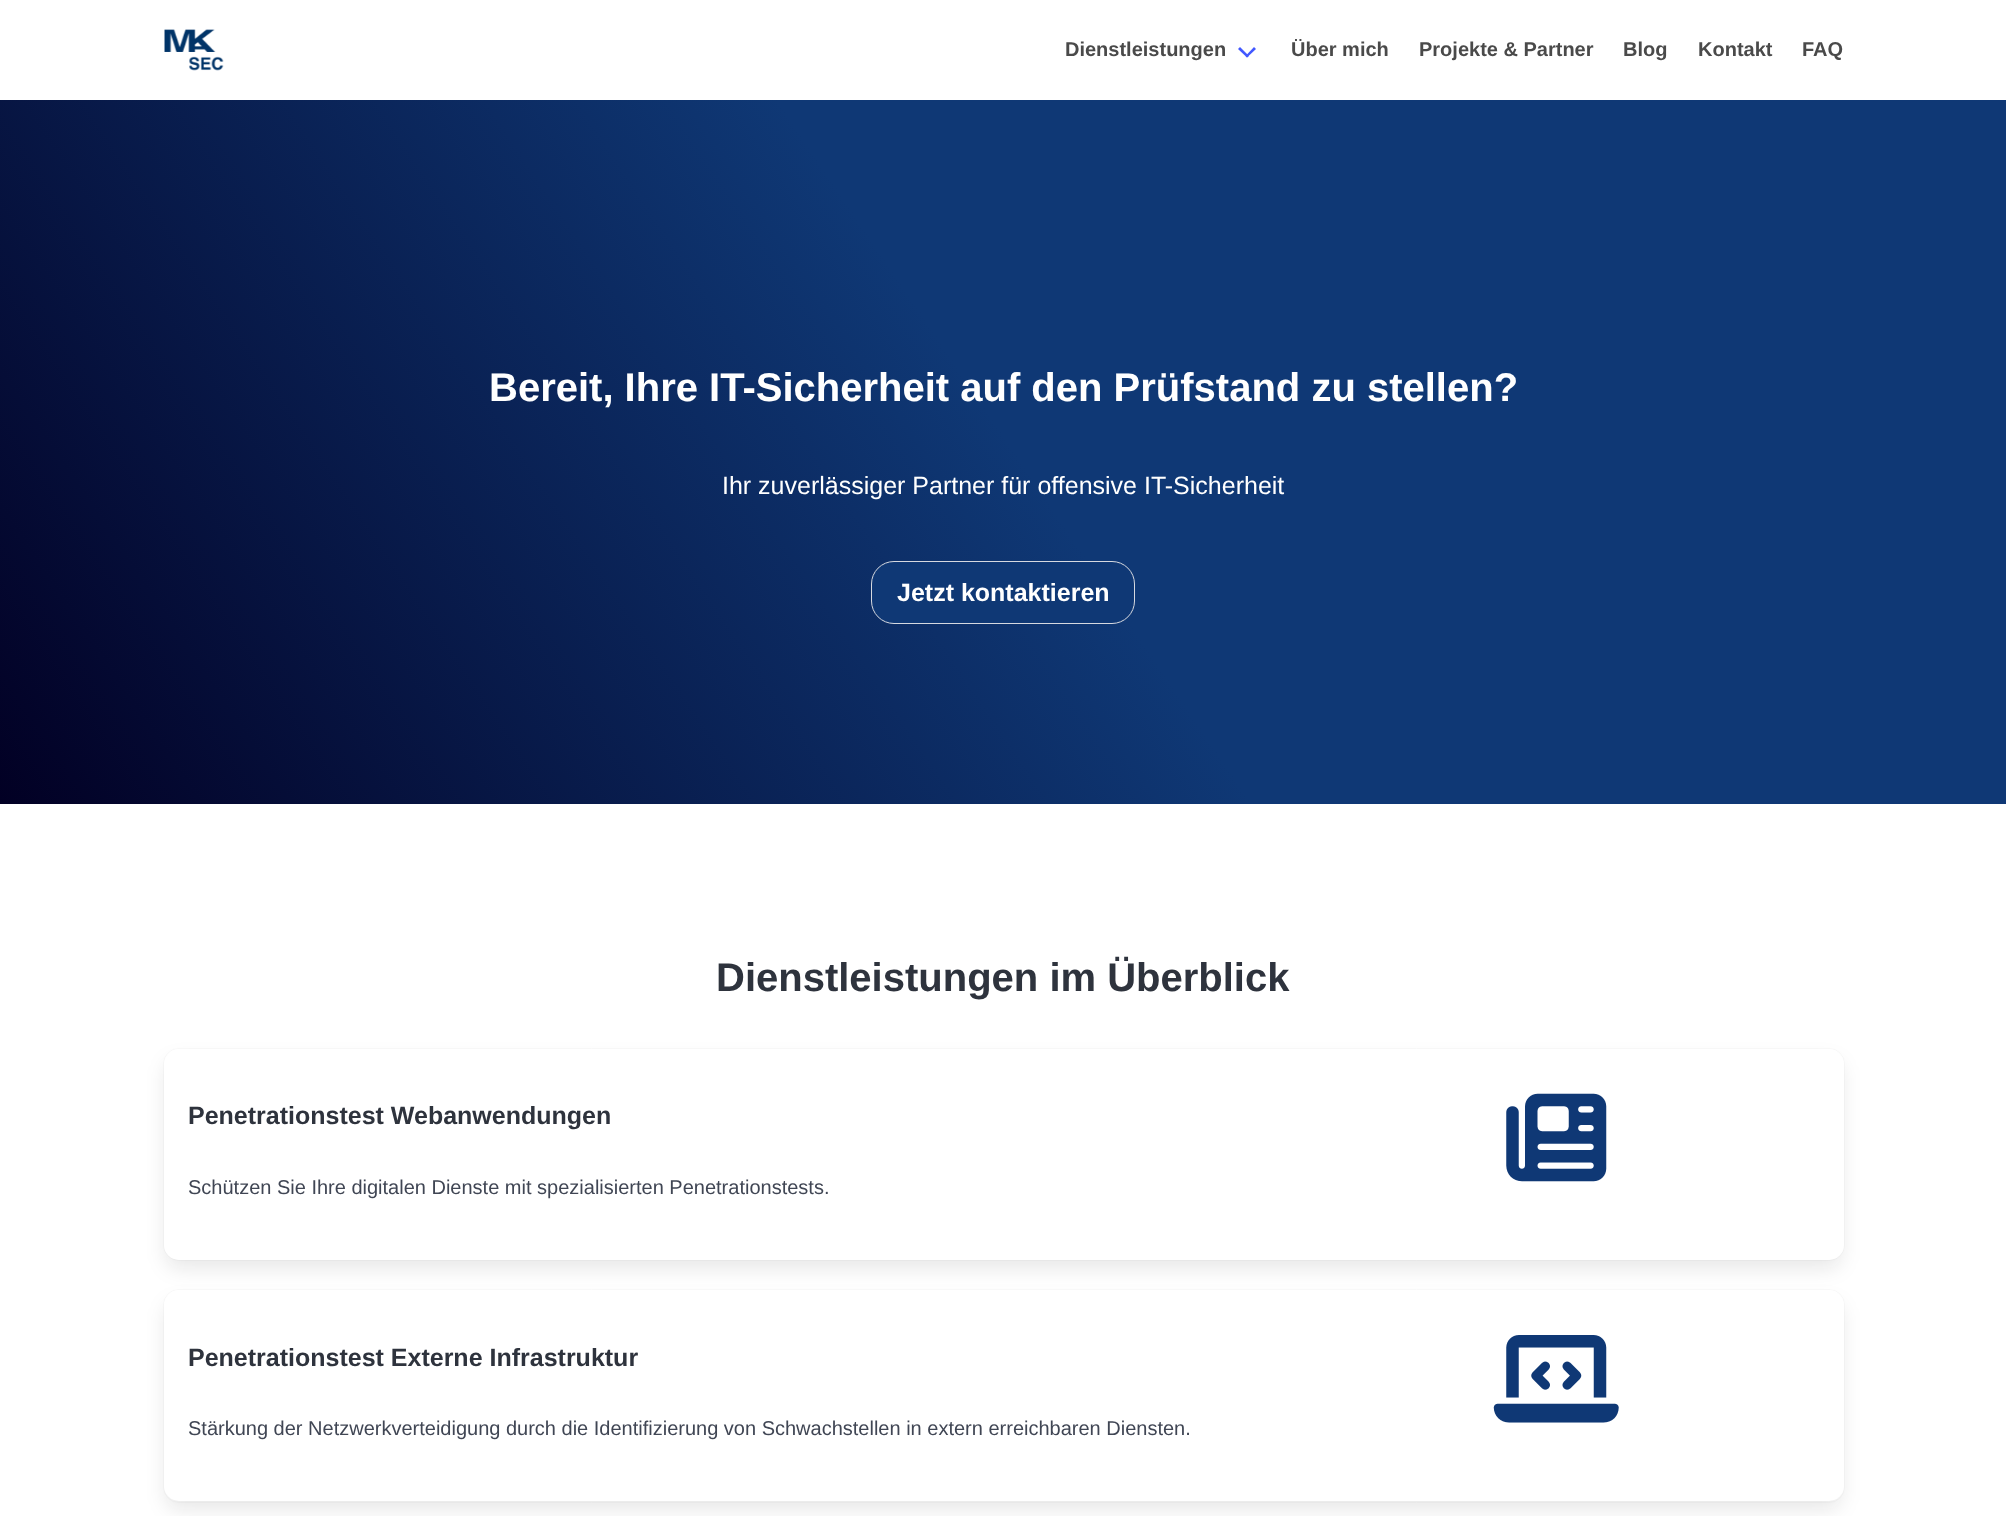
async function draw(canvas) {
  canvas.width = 2006;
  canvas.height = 1516;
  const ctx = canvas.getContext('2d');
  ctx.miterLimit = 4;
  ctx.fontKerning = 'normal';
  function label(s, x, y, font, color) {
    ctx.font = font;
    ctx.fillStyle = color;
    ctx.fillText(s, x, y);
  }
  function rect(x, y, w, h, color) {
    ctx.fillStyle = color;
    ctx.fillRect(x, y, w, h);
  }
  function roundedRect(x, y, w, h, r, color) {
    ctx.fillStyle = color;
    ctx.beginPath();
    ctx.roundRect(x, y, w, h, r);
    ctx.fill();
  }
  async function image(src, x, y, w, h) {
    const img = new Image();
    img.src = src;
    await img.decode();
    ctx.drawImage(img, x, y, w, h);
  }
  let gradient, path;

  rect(0, 0, 2006, 1516, '#fff');
  await image('assets/img1.png', 164, 29, 60, 42);
  label('Dienstleistungen', 1065, 56, 'bold 20px Liberation Sans', '#4a4a4a');
  ctx.fillStyle = '#4258ff';
  path = new Path2D('M1245.5 56L1254 47L1256 49L1247 57.5Z');
  ctx.fill(path);
  path = new Path2D('M1238 49L1240 47L1249 56L1247 57.5Z');
  ctx.fill(path);
  label('Über mich', 1291, 56, 'bold 20px Liberation Sans', '#4a4a4a');
  label('Projekte & Partner', 1419, 56, 'bold 20px Liberation Sans', '#4a4a4a');
  label('Blog', 1623, 56, 'bold 20px Liberation Sans', '#4a4a4a');
  label('Kontakt', 1698, 56, 'bold 20px Liberation Sans', '#4a4a4a');
  label('FAQ', 1802, 56, 'bold 20px Liberation Sans', '#4a4a4a');
  gradient = ctx.createLinearGradient(142, 1015, 1864, -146);
  gradient.addColorStop(0, '#020024');
  gradient.addColorStop(0.5, '#0f3875');
  ctx.fillStyle = gradient;
  ctx.fillRect(0, 100, 2006, 704);
  label('Bereit, Ihre IT-Sicherheit auf den Prüfstand zu stellen?', 489, 401, 'bold 40px Liberation Sans', '#fff');
  label('Ihr zuverlässiger Partner für offensive IT-Sicherheit', 722, 494, '25px Liberation Sans', '#fff');
  ctx.fillStyle = '#0f3875';
  ctx.beginPath();
  ctx.roundRect(871.5, 561.5, 263, 62, 22.5);
  ctx.fill();
  ctx.strokeStyle = '#d6d9e0';
  ctx.stroke();
  label('Jetzt kontaktieren', 897, 601, 'bold 25px Liberation Sans', '#fff');
  label('Dienstleistungen im Überblick', 716, 991, 'bold 40px Liberation Sans', '#2e333d');
  ctx.beginPath();
  ctx.roundRect(163.5, 1048.5, 1681, 212, 15.5);
  ctx.strokeStyle = '#fafafa';
  ctx.stroke();
  ctx.fillStyle = '#090a0c1a';
  ctx.filter = 'blur(10px)';
  ctx.beginPath();
  ctx.roundRect(166, 1061, 1675, 207, 13);
  ctx.fill();
  ctx.filter = 'none';
  roundedRect(164, 1049, 1680, 211, 15, '#fff');
  label('Penetrationstest Webanwendungen', 188, 1124, 'bold 25px Liberation Sans', '#2e333d');
  label('Schützen Sie Ihre digitalen Dienste mit spezialisierten Penetrationstests.', 188, 1194, '20px Liberation Sans', '#404654');
  await image('assets/img2.png', 1506, 1093, 101, 89);
  ctx.beginPath();
  ctx.roundRect(163.5, 1289.5, 1681, 213, 15.5);
  ctx.stroke();
  ctx.fillStyle = '#090a0c1a';
  ctx.filter = 'blur(10px)';
  ctx.beginPath();
  ctx.roundRect(166, 1303, 1675, 206, 13);
  ctx.fill();
  ctx.filter = 'none';
  roundedRect(164, 1290, 1680, 211, 15, '#fff');
  label('Penetrationstest Externe Infrastruktur', 188, 1366, 'bold 25px Liberation Sans', '#2e333d');
  label('Stärkung der Netzwerkverteidigung durch die Identifizierung von Schwachstellen in extern erreichbaren Diensten.', 188, 1435, '20px Liberation Sans', '#404654');
  await image('assets/img3.png', 1493, 1335, 126, 88);
}

draw(document.querySelector('canvas'));
